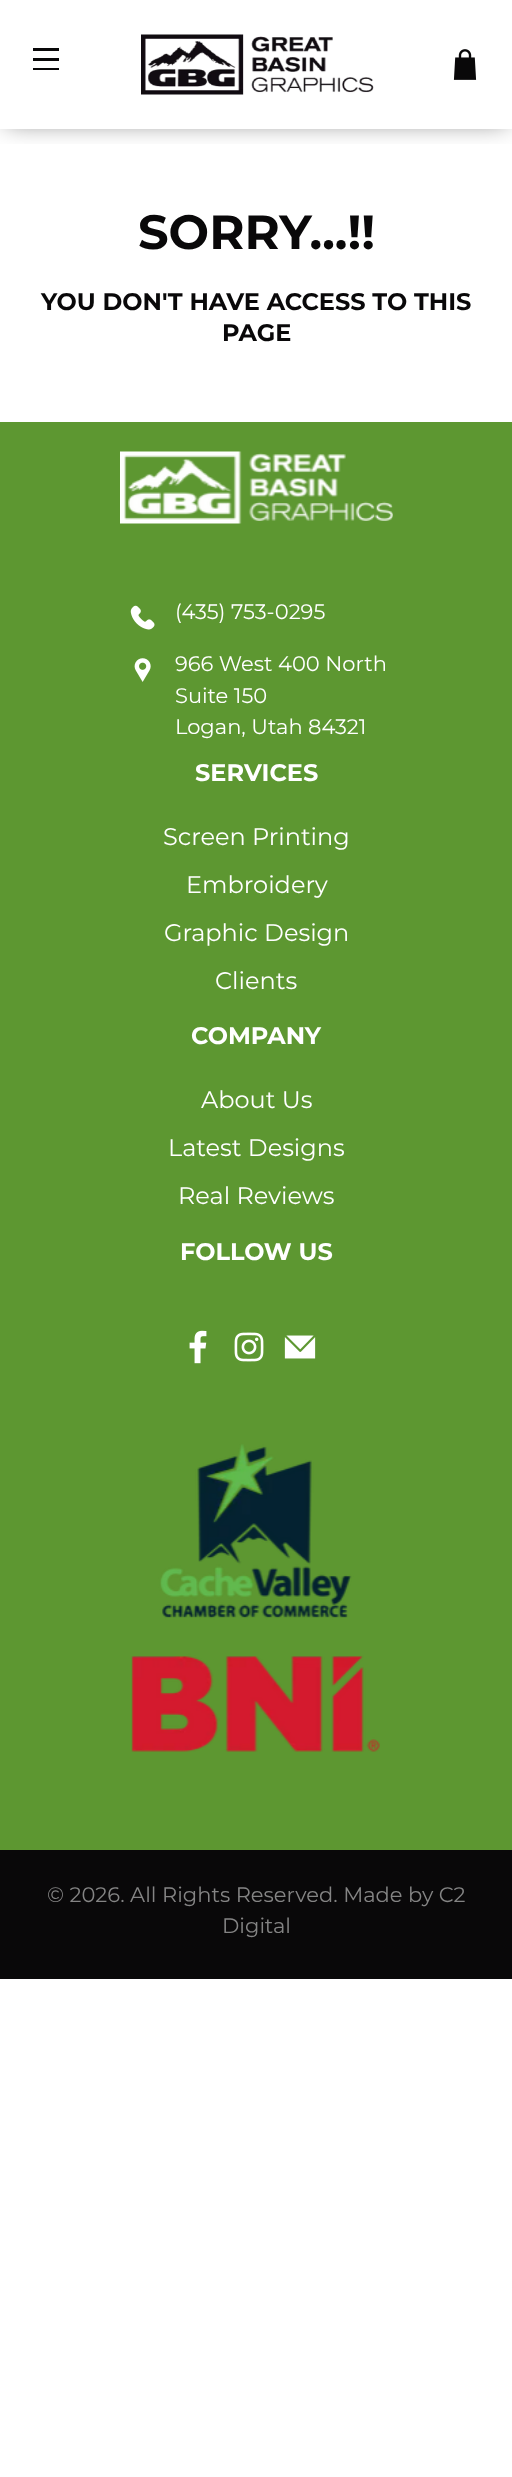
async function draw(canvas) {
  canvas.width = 512;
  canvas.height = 2477;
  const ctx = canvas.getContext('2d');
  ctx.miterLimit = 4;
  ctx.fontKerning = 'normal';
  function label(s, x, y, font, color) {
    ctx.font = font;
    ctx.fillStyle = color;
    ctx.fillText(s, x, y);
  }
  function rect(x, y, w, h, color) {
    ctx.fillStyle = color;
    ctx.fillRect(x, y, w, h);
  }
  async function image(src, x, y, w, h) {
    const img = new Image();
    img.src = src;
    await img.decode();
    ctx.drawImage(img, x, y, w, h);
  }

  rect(0, 0, 512, 2477, '#fff');
  ctx.save();
  ctx.beginPath();
  ctx.rect(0, 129, 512, 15);
  ctx.clip();
  ctx.fillStyle = '#00000080';
  ctx.filter = 'blur(12px)';
  ctx.beginPath();
  ctx.rect(6, 6, 501, 117);
  ctx.fill();
  ctx.filter = 'none';
  ctx.restore();
  rect(33, 48, 26, 3, '#090809');
  rect(33, 58, 26, 3, '#090809');
  rect(33, 68, 26, 2, '#090809');
  await image('assets/img1.png', 141, 34, 233, 61);
  await image('assets/img2.png', 453, 49, 24, 31);
  label('SORRY...!!', 138, 249, 'bold 48px Montserrat', '#090809');
  label('YOU DON\'T HAVE ACCESS TO THIS', 41, 310, 'bold 24px Montserrat', '#090809');
  label('PAGE', 222, 341, 'bold 24px Montserrat', '#090809');
  rect(0, 422, 512, 1428, '#5d9731');
  await image('assets/img3.png', 120, 451, 273, 73);
  await image('assets/img4.png', 130, 605, 25, 25);
  label('(435) 753-0295', 175, 619, '21px Montserrat', '#fff');
  await image('assets/img5.png', 134, 658, 17, 24);
  label('966 West 400 North', 175, 671, '21px Montserrat', '#fff');
  label('Suite 150', 175, 703, '21px Montserrat', '#fff');
  label('Logan, Utah 84321', 175, 734, '21px Montserrat', '#fff');
  label('SERVICES', 195, 781, 'bold 24px Montserrat', '#fff');
  label('Screen Printing', 163, 845, '24px Montserrat', '#fff');
  label('Embroidery', 186, 893, '24px Montserrat', '#fff');
  label('Graphic Design', 164, 941, '24px Montserrat', '#fff');
  label('Clients', 215, 989, '24px Montserrat', '#fff');
  label('COMPANY', 191, 1044, 'bold 24px Montserrat', '#fff');
  label('About Us', 201, 1108, '24px Montserrat', '#fff');
  label('Latest Designs', 168, 1156, '24px Montserrat', '#fff');
  label('Real Reviews', 178, 1204, '24px Montserrat', '#fff');
  label('FOLLOW US', 180, 1260, 'bold 24px Montserrat', '#fff');
  await image('assets/img6.png', 189, 1330, 18, 34);
  await image('assets/img7.png', 234, 1332, 30, 30);
  await image('assets/img8.png', 284, 1335, 32, 24);
  await image('assets/img9.png', 131, 1444, 249, 308);
  rect(0, 1850, 512, 129, '#090809');
  label('© 2026. All Rights Reserved. Made by C2', 47, 1902, '21px Montserrat', '#848484');
  label('Digital', 222, 1933, '21px Montserrat', '#848484');
}

draw(document.querySelector('canvas'));
